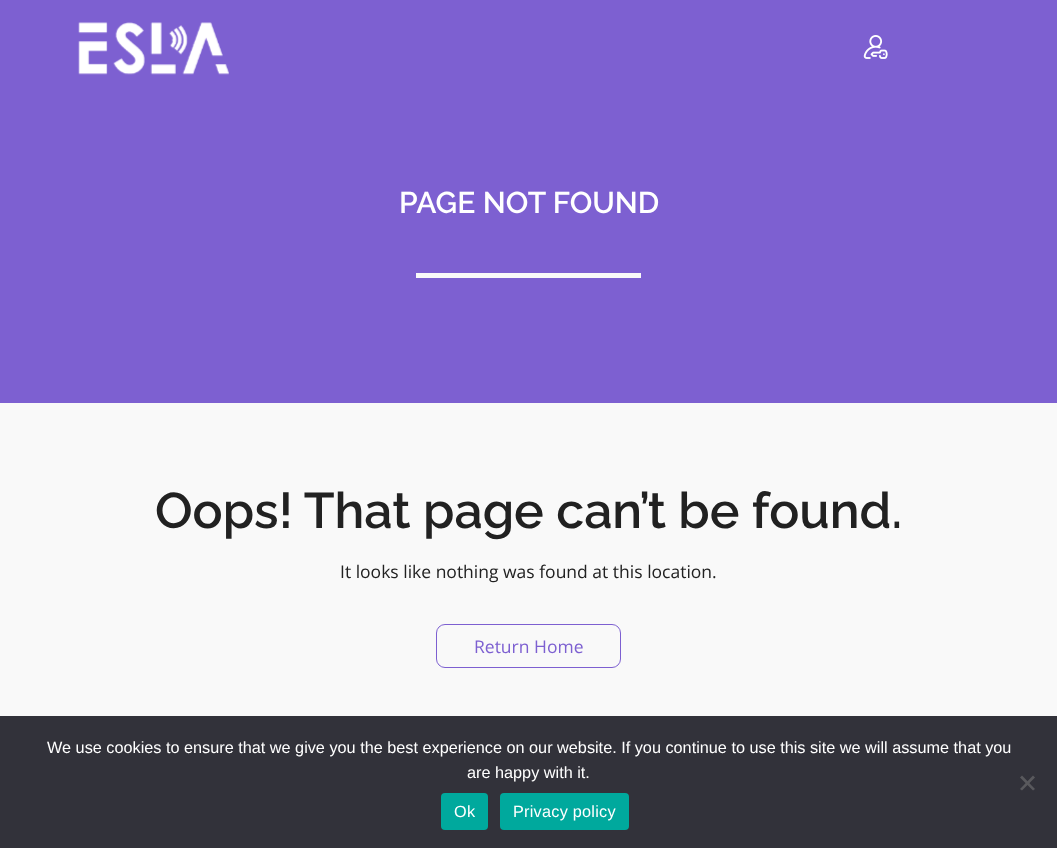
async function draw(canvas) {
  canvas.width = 1057;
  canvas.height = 848;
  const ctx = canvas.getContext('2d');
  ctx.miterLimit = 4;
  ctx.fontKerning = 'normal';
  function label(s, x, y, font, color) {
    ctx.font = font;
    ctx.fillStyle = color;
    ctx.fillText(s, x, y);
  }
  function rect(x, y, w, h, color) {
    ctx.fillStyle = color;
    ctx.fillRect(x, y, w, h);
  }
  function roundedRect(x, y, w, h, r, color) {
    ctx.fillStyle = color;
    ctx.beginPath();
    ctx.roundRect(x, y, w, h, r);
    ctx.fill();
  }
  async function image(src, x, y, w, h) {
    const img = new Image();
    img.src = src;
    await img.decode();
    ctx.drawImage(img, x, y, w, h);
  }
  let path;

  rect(0, 0, 1057, 848, '#f9f9f9');
  rect(0, 0, 1057, 403, '#7d60d1');
  await image('assets/img1.png', 78, 22, 151, 53);
  await image('assets/img2.png', 863, 35, 25, 24);
  label('PAGE NOT FOUND', 399, 213, '100 30px Raleway', '#fff');
  rect(416, 273, 225, 5, '#f9f9f9');
  label('Oops! That page can’t be found.', 155, 528, '100 50px Raleway', '#212121');
  label('It looks like nothing was found at this location.', 340, 578, '17.5px Open Sans', '#212121');
  ctx.beginPath();
  ctx.roundRect(436.5, 624.5, 184, 43, 8.5);
  ctx.strokeStyle = '#7d60d1';
  ctx.stroke();
  label('Return Home', 474, 653, '17.5px Open Sans', '#7d60d1');
  rect(0, 716, 1057, 132, '#32323a');
  label('We use cookies to ensure that we give you the best experience on our website. If you continue to use this site we will assume that you', 47, 753, '16.25px Liberation Sans', '#fff');
  label('are happy with it.', 467, 778, '16.25px Liberation Sans', '#fff');
  ctx.fillStyle = '#59595d';
  path = new Path2D('M1033 775.5L1035 777.5L1022 790.5L1020 789Z');
  ctx.fill(path);
  path = new Path2D('M1020 777.5L1022 775.5L1035 789L1033 790.5Z');
  ctx.fill(path);
  roundedRect(441, 793, 47, 37, 4, '#00a99d');
  ctx.letterSpacing = '0.25px';
  label('Ok', 454, 817, '16.25px Liberation Sans', '#fff');
  roundedRect(500, 793, 129, 37, 4, '#00a99d');
  label('Privacy policy', 513, 817, '16.25px Liberation Sans', '#fff');
}

draw(document.querySelector('canvas'));
